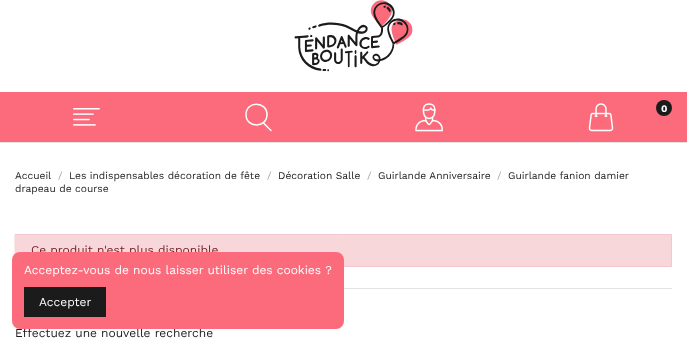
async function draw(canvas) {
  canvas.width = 687;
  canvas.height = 341;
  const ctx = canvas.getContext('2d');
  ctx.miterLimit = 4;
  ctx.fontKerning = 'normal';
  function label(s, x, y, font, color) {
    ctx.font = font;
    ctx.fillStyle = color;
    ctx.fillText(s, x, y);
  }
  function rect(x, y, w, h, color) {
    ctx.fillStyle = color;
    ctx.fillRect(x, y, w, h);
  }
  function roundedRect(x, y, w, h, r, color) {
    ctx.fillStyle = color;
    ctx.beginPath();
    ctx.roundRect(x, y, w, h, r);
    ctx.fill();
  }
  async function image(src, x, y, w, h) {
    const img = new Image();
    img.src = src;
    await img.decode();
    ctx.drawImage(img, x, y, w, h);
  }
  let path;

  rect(0, 0, 687, 341, '#fff');
  rect(0, 142, 687, 1, '#e3e3e3');
  await image('assets/img1.png', 294, 0, 119, 72);
  rect(0, 92, 687, 50, '#fb6b7b');
  await image('assets/img2.png', 73, 108, 27, 18);
  path = new Path2D('M267 114.5C267 128.5 246 128.5 246 114.5C246 100.5 267 101 267 114.5ZM263.5 123L271 130.5');
  ctx.strokeStyle = '#fff';
  ctx.lineWidth = 1.5;
  ctx.lineCap = 'round';
  ctx.lineJoin = 'round';
  ctx.stroke(path);
  await image('assets/img3.png', 415, 103, 28, 29);
  await image('assets/img4.png', 588, 103, 26, 29);
  ctx.fillStyle = '#1b1b1b';
  ctx.beginPath();
  ctx.arc(664, 108, 8, 0, 2 * Math.PI);
  ctx.fill();
  label('0', 661, 112, 'bold 10px Work Sans', '#fff');
  label('Accueil', 15, 179, '10.25px Work Sans', '#1b1b1b');
  label('/', 58, 179, '10.25px Work Sans', '#a4a4a4');
  label('Les indispensables décoration de fête', 69, 179, '10.25px Work Sans', '#1b1b1b');
  label('/', 267, 179, '10.25px Work Sans', '#a4a4a4');
  label('Décoration Salle', 278, 179, '10.25px Work Sans', '#1b1b1b');
  label('/', 367, 179, '10.25px Work Sans', '#a4a4a4');
  label('Guirlande Anniversaire', 378, 179, '10.25px Work Sans', '#1b1b1b');
  label('/', 497, 179, '10.25px Work Sans', '#a4a4a4');
  label('Guirlande fanion damier', 508, 179, '10.25px Work Sans', '#1b1b1b');
  label('drapeau de course', 15, 192, '10.25px Work Sans', '#1b1b1b');
  ctx.fillStyle = '#f8d7da';
  ctx.beginPath();
  ctx.rect(15.5, 234.5, 656, 32);
  ctx.fill();
  ctx.strokeStyle = '#f5c6cb';
  ctx.lineWidth = 1;
  ctx.lineJoin = 'miter';
  ctx.stroke();
  label('Ce produit n\'est plus disponible', 31, 254, '12px Work Sans', '#721c24');
  rect(344, 288, 328, 1, '#e3e3e3');
  label('Effectuez une nouvelle recherche', 15, 337, '12px Work Sans', '#1b1b1b');
  roundedRect(12, 252, 332, 77, 8, '#fb6b7b');
  label('Acceptez-vous de nous laisser utiliser des cookies ?', 24, 274, '12px Work Sans', '#fff');
  rect(24, 287, 82, 30, '#1b1b1b');
  label('Accepter', 39, 306, '12px Work Sans', '#fff');
}

draw(document.querySelector('canvas'));
